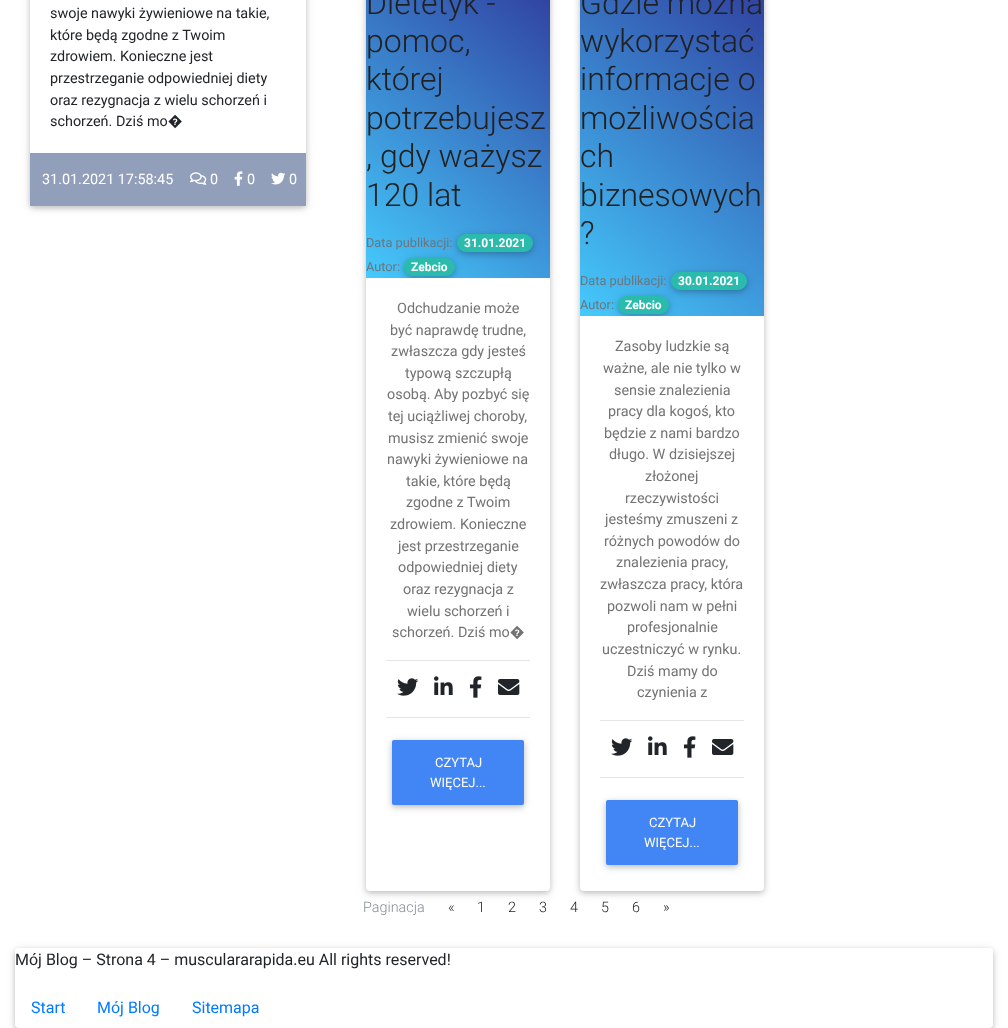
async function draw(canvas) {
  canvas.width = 1008;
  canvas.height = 1028;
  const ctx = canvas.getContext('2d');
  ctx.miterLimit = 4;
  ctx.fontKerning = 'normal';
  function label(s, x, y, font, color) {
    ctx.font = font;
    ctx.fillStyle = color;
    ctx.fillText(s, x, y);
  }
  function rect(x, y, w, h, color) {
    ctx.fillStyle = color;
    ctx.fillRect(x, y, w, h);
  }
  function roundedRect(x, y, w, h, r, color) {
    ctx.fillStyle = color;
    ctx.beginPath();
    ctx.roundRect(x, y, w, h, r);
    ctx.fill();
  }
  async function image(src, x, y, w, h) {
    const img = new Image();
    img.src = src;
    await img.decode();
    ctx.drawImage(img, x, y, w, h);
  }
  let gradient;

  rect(0, 0, 1008, 1028, '#fff');
  ctx.fillStyle = '#0000001f';
  ctx.filter = 'blur(5px)';
  ctx.beginPath();
  ctx.roundRect(30, -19, 276, 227, 4);
  ctx.fill();
  ctx.filter = 'none';
  ctx.fillStyle = '#00000029';
  ctx.filter = 'blur(2.5px)';
  ctx.beginPath();
  ctx.roundRect(30, -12, 276, 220, 4);
  ctx.fill();
  ctx.filter = 'none';
  rect(30, 0, 276, 153, '#fff');
  label('swoje nawyki żywieniowe na takie,', 50, 18, '14.4px Roboto', '#212529');
  label('które będą zgodne z Twoim', 50, 40, '14.4px Roboto', '#212529');
  label('zdrowiem. Konieczne jest', 50, 61, '14.4px Roboto', '#212529');
  label('przestrzeganie odpowiedniej diety', 50, 83, '14.4px Roboto', '#212529');
  label('oraz rezygnacja z wielu schorzeń i', 50, 105, '14.4px Roboto', '#212529');
  label('schorzeń. Dziś mo�', 50, 126, '14.4px Roboto', '#212529');
  rect(30, 153, 276, 53, '#929fba');
  label('31.01.2021 17:58:45', 42, 184, '14.4px Roboto', '#fff');
  await image('assets/img1.png', 190, 172, 17, 13);
  label('0', 210, 184, '14.4px Roboto', '#fff');
  await image('assets/img2.png', 234, 171, 9, 15);
  label('0', 247, 184, '14.4px Roboto', '#fff');
  await image('assets/img3.png', 271, 172, 15, 13);
  label('0', 289, 184, '14.4px Roboto', '#fff');
  ctx.fillStyle = '#0000001f';
  ctx.filter = 'blur(5px)';
  ctx.beginPath();
  ctx.roundRect(366, -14, 184, 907, 4);
  ctx.fill();
  ctx.filter = 'none';
  ctx.fillStyle = '#00000029';
  ctx.filter = 'blur(2.5px)';
  ctx.beginPath();
  ctx.roundRect(366, -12, 184, 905, 4);
  ctx.fill();
  ctx.filter = 'none';
  roundedRect(366, -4, 184, 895, 4, '#fff');
  gradient = ctx.createLinearGradient(348, 263, 568, -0.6);
  gradient.addColorStop(0, '#45cafc');
  gradient.addColorStop(1, '#303f9f');
  ctx.fillStyle = gradient;
  ctx.fillRect(366, 0, 184, 278);
  label('Dietetyk -', 366, 14, '300 32px Roboto', '#212121');
  label('pomoc,', 366, 52, '300 32px Roboto', '#212121');
  label('której', 366, 90, '300 32px Roboto', '#212121');
  label('potrzebujesz', 366, 129, '300 32px Roboto', '#212121');
  label(', gdy ważysz', 366, 167, '300 32px Roboto', '#212121');
  label('120 lat', 366, 206, '300 32px Roboto', '#212121');
  label('Data publikacji:', 366, 247, '12.75px Roboto', '#6c757d');
  ctx.fillStyle = '#0000001f';
  ctx.filter = 'blur(5px)';
  ctx.beginPath();
  ctx.roundRect(457, 236, 76, 18, 9);
  ctx.fill();
  ctx.filter = 'none';
  ctx.fillStyle = '#00000029';
  ctx.filter = 'blur(2.5px)';
  ctx.beginPath();
  ctx.roundRect(457, 236, 76, 18, 9);
  ctx.fill();
  ctx.filter = 'none';
  roundedRect(457, 234, 76, 18, 9, '#2bbbad');
  label('31.01.2021', 464, 247, 'bold 12px Roboto', '#fff');
  label('Autor:', 366, 271, '12.75px Roboto', '#6c757d');
  ctx.save();
  ctx.beginPath();
  ctx.rect(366, 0, 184, 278);
  ctx.clip();
  ctx.fillStyle = '#0000001f';
  ctx.filter = 'blur(5px)';
  ctx.beginPath();
  ctx.roundRect(404, 260, 51, 18, 9);
  ctx.fill();
  ctx.filter = 'none';
  ctx.fillStyle = '#00000029';
  ctx.filter = 'blur(2.5px)';
  ctx.beginPath();
  ctx.roundRect(404, 260, 51, 18, 9);
  ctx.fill();
  ctx.filter = 'none';
  ctx.restore();
  roundedRect(404, 258, 51, 18, 9, '#2bbbad');
  label('Zebcio', 411, 271, 'bold 12px Roboto', '#fff');
  label('Odchudzanie może', 397, 313, '14.4px Roboto', '#747373');
  label('być naprawdę trudne,', 390, 335, '14.4px Roboto', '#747373');
  label('zwłaszcza gdy jesteś', 391, 356, '14.4px Roboto', '#747373');
  label('typową szczupłą', 405, 378, '14.4px Roboto', '#747373');
  label('osobą. Aby pozbyć się', 387, 399, '14.4px Roboto', '#747373');
  label('tej uciążliwej choroby,', 388, 421, '14.4px Roboto', '#747373');
  label('musisz zmienić swoje', 388, 443, '14.4px Roboto', '#747373');
  label('nawyki żywieniowe na', 387, 464, '14.4px Roboto', '#747373');
  label('takie, które będą', 406, 486, '14.4px Roboto', '#747373');
  label('zgodne z Twoim', 406, 507, '14.4px Roboto', '#747373');
  label('zdrowiem. Konieczne', 390, 529, '14.4px Roboto', '#747373');
  label('jest przestrzeganie', 398, 551, '14.4px Roboto', '#747373');
  label('odpowiedniej diety', 398, 572, '14.4px Roboto', '#747373');
  label('oraz rezygnacja z', 403, 594, '14.4px Roboto', '#747373');
  label('wielu schorzeń i', 407, 616, '14.4px Roboto', '#747373');
  label('schorzeń. Dziś mo�', 392, 637, '14.4px Roboto', '#747373');
  rect(386, 660, 144, 1, '#e6e6e6');
  await image('assets/img4.png', 397, 678, 22, 18);
  await image('assets/img5.png', 434, 676, 19, 19);
  await image('assets/img6.png', 469, 676, 13, 22);
  await image('assets/img7.png', 498, 679, 22, 16);
  rect(386, 717, 144, 1, '#e6e6e6');
  ctx.fillStyle = '#0000001f';
  ctx.filter = 'blur(5px)';
  ctx.beginPath();
  ctx.roundRect(392, 742, 132, 65, 2);
  ctx.fill();
  ctx.filter = 'none';
  ctx.fillStyle = '#00000029';
  ctx.filter = 'blur(2.5px)';
  ctx.beginPath();
  ctx.roundRect(392, 742, 132, 65, 2);
  ctx.fill();
  ctx.filter = 'none';
  roundedRect(392, 740, 132, 65, 2, '#4285f4');
  label('CZYTAJ', 435, 767, '13px Roboto', '#fff');
  label('WIĘCEJ...', 430, 787, '13px Roboto', '#fff');
  ctx.fillStyle = '#0000001f';
  ctx.filter = 'blur(5px)';
  ctx.beginPath();
  ctx.roundRect(580, -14, 184, 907, 4);
  ctx.fill();
  ctx.filter = 'none';
  ctx.fillStyle = '#00000029';
  ctx.filter = 'blur(2.5px)';
  ctx.beginPath();
  ctx.roundRect(580, -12, 184, 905, 4);
  ctx.fill();
  ctx.filter = 'none';
  roundedRect(580, -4, 184, 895, 4, '#fff');
  gradient = ctx.createLinearGradient(552, 293, 792, 7.3);
  gradient.addColorStop(0, '#45cafc');
  gradient.addColorStop(1, '#303f9f');
  ctx.fillStyle = gradient;
  ctx.fillRect(580, 0, 184, 316);
  label('Gdzie można', 580, 14, '300 32px Roboto', '#212121');
  label('wykorzystać', 580, 52, '300 32px Roboto', '#212121');
  label('informacje o', 580, 90, '300 32px Roboto', '#212121');
  label('możliwościa', 580, 129, '300 32px Roboto', '#212121');
  label('ch', 580, 167, '300 32px Roboto', '#212121');
  label('biznesowych', 580, 206, '300 32px Roboto', '#212121');
  label('?', 580, 244, '300 32px Roboto', '#212121');
  label('Data publikacji:', 580, 285, '12.75px Roboto', '#6c757d');
  ctx.fillStyle = '#0000001f';
  ctx.filter = 'blur(5px)';
  ctx.beginPath();
  ctx.roundRect(671, 274, 76, 18, 9);
  ctx.fill();
  ctx.filter = 'none';
  ctx.fillStyle = '#00000029';
  ctx.filter = 'blur(2.5px)';
  ctx.beginPath();
  ctx.roundRect(671, 274, 76, 18, 9);
  ctx.fill();
  ctx.filter = 'none';
  roundedRect(671, 272, 76, 18, 9, '#2bbbad');
  label('30.01.2021', 678, 285, 'bold 12px Roboto', '#fff');
  label('Autor:', 580, 309, '12.75px Roboto', '#6c757d');
  ctx.save();
  ctx.beginPath();
  ctx.rect(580, 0, 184, 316);
  ctx.clip();
  ctx.fillStyle = '#0000001f';
  ctx.filter = 'blur(5px)';
  ctx.beginPath();
  ctx.roundRect(618, 298, 51, 18, 9);
  ctx.fill();
  ctx.filter = 'none';
  ctx.fillStyle = '#00000029';
  ctx.filter = 'blur(2.5px)';
  ctx.beginPath();
  ctx.roundRect(618, 298, 51, 18, 9);
  ctx.fill();
  ctx.filter = 'none';
  ctx.restore();
  roundedRect(618, 296, 51, 18, 9, '#2bbbad');
  label('Zebcio', 625, 309, 'bold 12px Roboto', '#fff');
  label('Zasoby ludzkie są', 615, 351, '14.4px Roboto', '#747373');
  label('ważne, ale nie tylko w', 603, 373, '14.4px Roboto', '#747373');
  label('sensie znalezienia', 614, 395, '14.4px Roboto', '#747373');
  label('pracy dla kogoś, kto', 608, 416, '14.4px Roboto', '#747373');
  label('będzie z nami bardzo', 604, 438, '14.4px Roboto', '#747373');
  label('długo. W dzisiejszej', 609, 459, '14.4px Roboto', '#747373');
  label('złożonej', 645, 481, '14.4px Roboto', '#747373');
  label('rzeczywistości', 625, 503, '14.4px Roboto', '#747373');
  label('jesteśmy zmuszeni z', 605, 524, '14.4px Roboto', '#747373');
  label('różnych powodów do', 604, 546, '14.4px Roboto', '#747373');
  label('znalezienia pracy,', 616, 567, '14.4px Roboto', '#747373');
  label('zwłaszcza pracy, która', 600, 589, '14.4px Roboto', '#747373');
  label('pozwoli nam w pełni', 607, 611, '14.4px Roboto', '#747373');
  label('profesjonalnie', 627, 632, '14.4px Roboto', '#747373');
  label('uczestniczyć w rynku.', 602, 654, '14.4px Roboto', '#747373');
  label('Dziś mamy do', 627, 676, '14.4px Roboto', '#747373');
  label('czynienia z', 637, 697, '14.4px Roboto', '#747373');
  rect(600, 720, 144, 1, '#e6e6e6');
  await image('assets/img4.png', 611, 738, 22, 18);
  await image('assets/img5.png', 648, 736, 19, 19);
  await image('assets/img6.png', 683, 736, 13, 22);
  await image('assets/img7.png', 712, 739, 22, 16);
  rect(600, 777, 144, 1, '#e6e6e6');
  ctx.fillStyle = '#0000001f';
  ctx.filter = 'blur(5px)';
  ctx.beginPath();
  ctx.roundRect(606, 802, 132, 65, 2);
  ctx.fill();
  ctx.filter = 'none';
  ctx.fillStyle = '#00000029';
  ctx.filter = 'blur(2.5px)';
  ctx.beginPath();
  ctx.roundRect(606, 802, 132, 65, 2);
  ctx.fill();
  ctx.filter = 'none';
  roundedRect(606, 800, 132, 65, 2, '#4285f4');
  label('CZYTAJ', 649, 827, '13px Roboto', '#fff');
  label('WIĘCEJ...', 644, 847, '13px Roboto', '#fff');
  label('Paginacja', 363, 912, '300 14.4px Roboto', '#868e96');
  label('«', 448, 912, '300 14.4px Roboto', '#212529');
  label('1', 477, 912, '300 14.4px Roboto', '#212529');
  label('2', 508, 912, '300 14.4px Roboto', '#212529');
  label('3', 539, 912, '300 14.4px Roboto', '#212529');
  label('4', 570, 912, '300 14.4px Roboto', '#212529');
  label('5', 601, 912, '300 14.4px Roboto', '#212529');
  label('6', 632, 912, '300 14.4px Roboto', '#212529');
  label('»', 663, 912, '300 14.4px Roboto', '#212529');
  ctx.fillStyle = '#0000001f';
  ctx.filter = 'blur(5px)';
  ctx.beginPath();
  ctx.roundRect(15, 950, 978, 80, 4);
  ctx.fill();
  ctx.filter = 'none';
  ctx.fillStyle = '#00000029';
  ctx.filter = 'blur(2.5px)';
  ctx.beginPath();
  ctx.roundRect(15, 950, 978, 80, 4);
  ctx.fill();
  ctx.filter = 'none';
  roundedRect(15, 948, 978, 80, 4, '#fff');
  label('Mój Blog – Strona 4 – musculararapida.eu All rights reserved!', 15, 965, '16px Roboto', '#212529');
  label('Start', 31, 1013, '16px Roboto', '#007bff');
  label('Mój Blog', 97, 1013, '16px Roboto', '#007bff');
  label('Sitemapa', 192, 1013, '16px Roboto', '#007bff');
}

draw(document.querySelector('canvas'));
